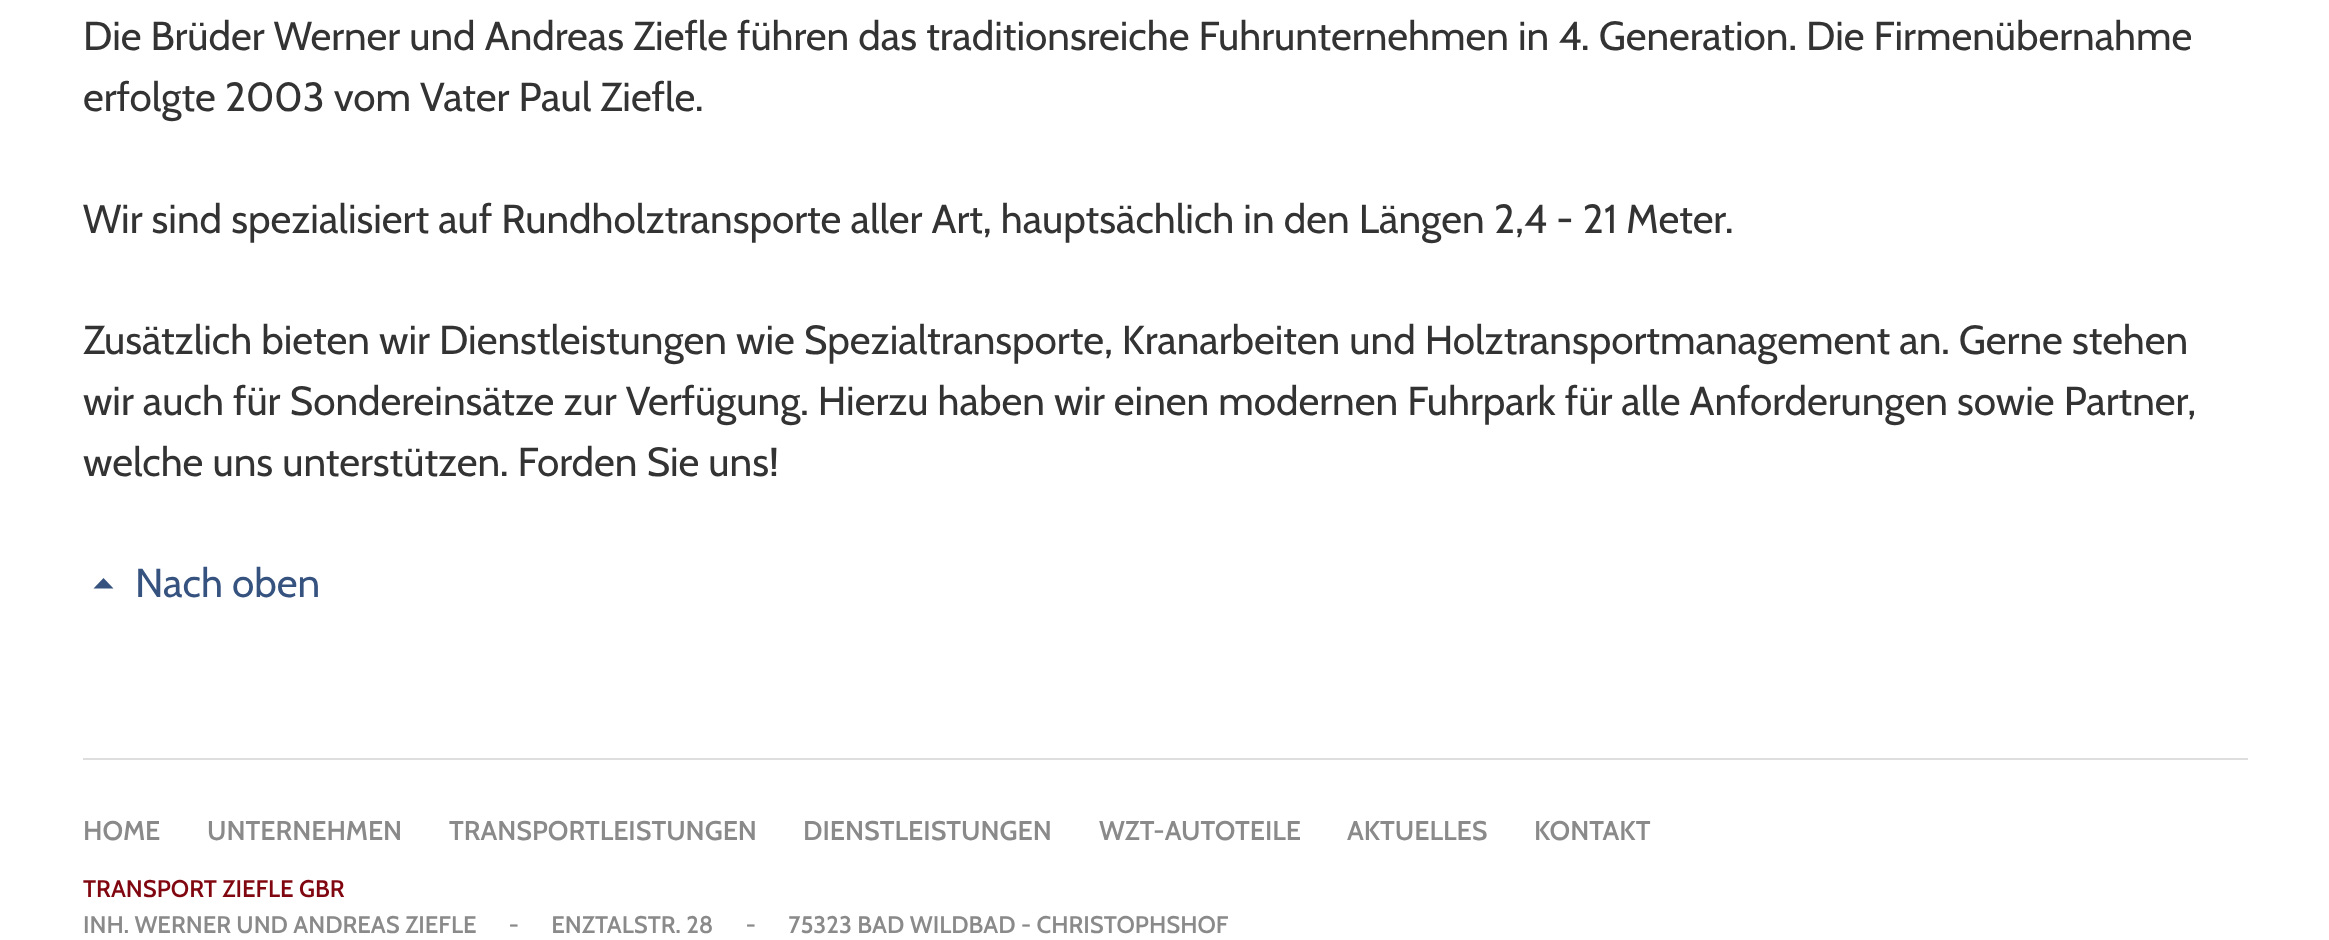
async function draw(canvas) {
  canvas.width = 2329;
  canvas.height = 940;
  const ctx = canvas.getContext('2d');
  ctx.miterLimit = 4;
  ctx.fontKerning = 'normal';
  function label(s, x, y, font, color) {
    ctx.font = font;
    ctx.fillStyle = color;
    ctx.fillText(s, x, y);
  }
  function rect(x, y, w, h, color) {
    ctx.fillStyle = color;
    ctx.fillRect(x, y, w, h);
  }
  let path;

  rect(0, 0, 2329, 940, '#fff');
  label('Die Brüder Werner und Andreas Ziefle führen das traditionsreiche Fuhrunternehmen in 4. Generation. Die Firmenübernahme', 83, 50, '40.5px Cabin', '#333');
  label('erfolgte 2003 vom Vater Paul Ziefle.', 83, 111, '40.5px Cabin', '#333');
  label('Wir sind spezialisiert auf Rundholztransporte aller Art, hauptsächlich in den Längen 2,4 - 21 Meter.', 83, 233, '40.5px Cabin', '#333');
  label('Zusätzlich bieten wir Dienstleistungen wie Spezialtransporte, Kranarbeiten und Holztransportmanagement an. Gerne stehen', 83, 354, '40.5px Cabin', '#333');
  label('wir auch für Sondereinsätze zur Verfügung. Hierzu haben wir einen modernen Fuhrpark für alle Anforderungen sowie Partner,', 83, 415, '40.5px Cabin', '#333');
  label('welche uns unterstützen. Forden Sie uns!', 83, 476, '40.5px Cabin', '#333');
  ctx.fillStyle = '#365380';
  path = new Path2D('M113.5 588.5L103.5 578L93.5 588.5Z');
  ctx.fill(path);
  label('Nach oben', 135, 597, '40.5px Cabin', '#365380');
  rect(83, 758, 2165, 2, '#dedede');
  label('HOME', 83, 840, '600 27px Cabin', '#8a8a8a');
  label('UNTERNEHMEN', 207, 840, '600 27px Cabin', '#8a8a8a');
  label('TRANSPORTLEISTUNGEN', 449, 840, '600 27px Cabin', '#8a8a8a');
  label('DIENSTLEISTUNGEN', 803, 840, '600 27px Cabin', '#8a8a8a');
  label('WZT-AUTOTEILE', 1099, 840, '600 27px Cabin', '#8a8a8a');
  label('AKTUELLES', 1347, 840, '600 27px Cabin', '#8a8a8a');
  label('KONTAKT', 1534, 840, '600 27px Cabin', '#8a8a8a');
  label('TRANSPORT ZIEFLE GBR', 83, 897, '600 24px Cabin', '#800610');
  label('INH. WERNER UND ANDREAS ZIEFLE      -      ENZTALSTR. 28      -      75323 BAD WILDBAD - CHRISTOPHSHOF', 83, 933, '600 24px Cabin', '#8a8a8a');
}

draw(document.querySelector('canvas'));
